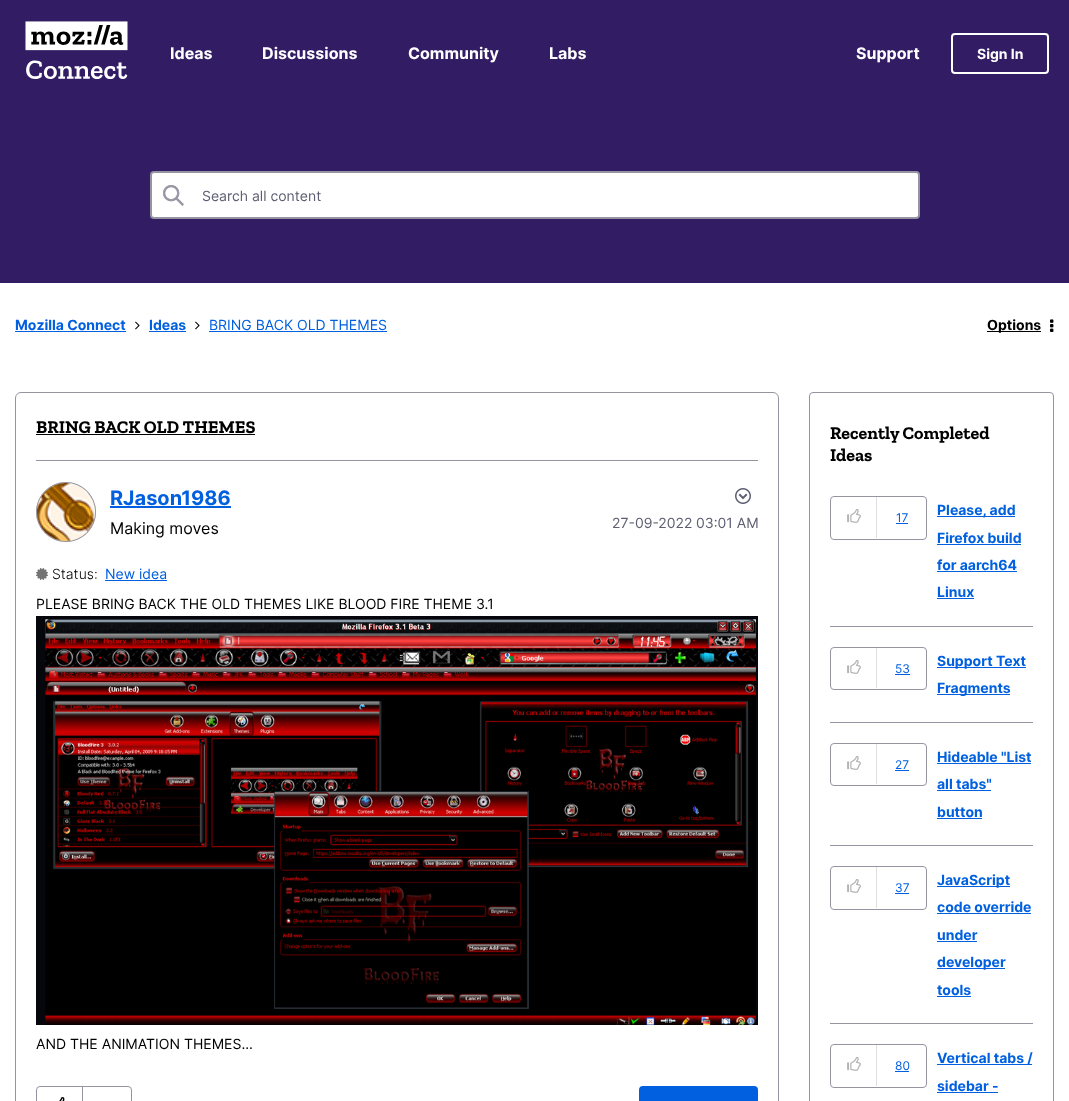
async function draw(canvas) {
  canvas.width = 1069;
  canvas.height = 1101;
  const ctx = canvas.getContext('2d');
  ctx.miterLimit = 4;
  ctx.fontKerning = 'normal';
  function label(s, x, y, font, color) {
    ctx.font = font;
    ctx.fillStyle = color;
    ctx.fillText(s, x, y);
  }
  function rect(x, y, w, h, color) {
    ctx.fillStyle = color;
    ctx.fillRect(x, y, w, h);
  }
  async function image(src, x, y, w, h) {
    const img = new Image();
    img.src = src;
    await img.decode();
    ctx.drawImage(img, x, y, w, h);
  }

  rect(0, 0, 1069, 1101, '#fff');
  rect(0, 0, 1069, 283, '#321c64');
  await image('assets/img1.png', 25, 21, 103, 58);
  label('Ideas', 170, 59, 'bold 16px Inter', '#fff');
  label('Discussions', 262, 59, 'bold 16px Inter', '#fff');
  label('Community', 408, 59, 'bold 16px Inter', '#fff');
  label('Labs', 549, 59, 'bold 16px Inter', '#fff');
  label('Support', 856, 59, 'bold 16px Inter', '#fff');
  ctx.beginPath();
  ctx.roundRect(952, 34, 96, 39, 3);
  ctx.strokeStyle = '#fff';
  ctx.lineWidth = 2;
  ctx.stroke();
  label('Sign In', 977, 59, 'bold 14px Inter', '#fff');
  ctx.beginPath();
  ctx.roundRect(151, 172, 768, 46, 3);
  ctx.fill();
  ctx.strokeStyle = '#9595a2';
  ctx.stroke();
  await image('assets/img2.png', 163, 185, 21, 21);
  label('Search all content', 202, 201, '14px Inter', '#5e5e72');
  label('Mozilla Connect', 15, 330, 'bold 14px Inter', '#0060df');
  rect(15, 331, 111, 1, '#0060df');
  await image('assets/img3.png', 135, 321, 5, 9);
  label('Ideas', 149, 330, 'bold 14px Inter', '#0060df');
  rect(149, 331, 37, 1, '#0060df');
  await image('assets/img3.png', 195, 321, 5, 9);
  label('BRING BACK OLD THEMES', 209, 330, '14px Inter', '#0060df');
  rect(209, 331, 178, 1, '#0060df');
  rect(987, 331, 54, 1, '#000');
  label('Options', 987, 330, 'bold 14px Inter', '#000');
  await image('assets/img4.png', 1050, 319, 4, 13);
  ctx.beginPath();
  ctx.roundRect(15.5, 392.5, 763, 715, 5.5);
  ctx.lineWidth = 1;
  ctx.stroke();
  rect(36, 460, 722, 1, '#9595a2');
  label('BRING BACK OLD THEMES', 36, 433, 'bold 18px Zilla Slab', '#000');
  rect(36, 434, 219, 1, '#000');
  ctx.fillStyle = '#c4c4c4';
  ctx.filter = 'blur(0.5px)';
  ctx.beginPath();
  ctx.roundRect(36, 482, 60, 60, 30);
  ctx.fill();
  ctx.filter = 'none';
  ctx.beginPath();
  ctx.arc(66, 512, 29.5, 0, 2 * Math.PI);
  ctx.stroke();
  await image('assets/img5.png', 37, 483, 58, 58);
  label('RJason1986', 110, 505, 'bold 20px Inter', '#0060df');
  rect(110, 506, 121, 2, '#0060df');
  label('Making moves', 110, 534, '16px Inter', '#000');
  await image('assets/img6.png', 735, 488, 16, 16);
  label('27-09-2022', 612, 528, '14px Inter', '#5e5e72');
  label('03:01 AM', 696, 528, '14px Inter', '#5e5e72');
  await image('assets/img7.png', 36, 568, 12, 12);
  label('Status:', 52, 579, '300 14px Inter', '#000');
  label('New idea', 105, 579, '14px Inter', '#0060df');
  rect(105, 580, 62, 1, '#0060df');
  label('PLEASE BRING BACK THE OLD THEMES LIKE BLOOD FIRE THEME 3.1', 36, 609, '14px Inter', '#000');
  await image('assets/img8.png', 36, 616, 722, 409);
  label('AND THE ANIMATION THEMES...', 36, 1049, '14px Inter', '#000');
  ctx.beginPath();
  ctx.roundRect(36.5, 1086.5, 95, 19, 3.5);
  ctx.stroke();
  rect(82, 1087, 1, 14, '#9595a2');
  await image('assets/img9.png', 59, 1097, 6, 4);
  ctx.fillStyle = '#0060df';
  ctx.beginPath();
  ctx.roundRect(640, 1087, 117, 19, 3);
  ctx.fill();
  ctx.strokeStyle = '#0060df';
  ctx.lineWidth = 2;
  ctx.stroke();
  ctx.beginPath();
  ctx.roundRect(809.5, 392.5, 244, 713, 3.5);
  ctx.strokeStyle = '#9595a2';
  ctx.lineWidth = 1;
  ctx.stroke();
  label('Recently Completed', 830, 439, 'bold 18px Zilla Slab', '#000');
  label('Ideas', 830, 461, 'bold 18px Zilla Slab', '#000');
  rect(830, 626, 203, 1, '#9595a2');
  ctx.beginPath();
  ctx.roundRect(830.5, 496.5, 96, 43, 3.5);
  ctx.stroke();
  rect(876, 497, 1, 41, '#dfdfe3');
  await image('assets/img10.png', 847, 509, 14, 14);
  label('17', 896, 522, '12px Inter', '#0060df');
  rect(896, 523, 12, 1, '#0060df');
  rect(937, 516, 78, 1, '#0060df');
  label('Please, add', 937, 515, 'bold 14px Inter', '#0060df');
  label('Firefox build', 937, 543, 'bold 14px Inter', '#0060df');
  rect(937, 544, 84, 1, '#0060df');
  label('for aarch64', 937, 570, 'bold 14px Inter', '#0060df');
  rect(937, 571, 80, 1, '#0060df');
  label('Linux', 937, 597, 'bold 14px Inter', '#0060df');
  rect(937, 598, 37, 1, '#0060df');
  rect(830, 722, 203, 1, '#9595a2');
  ctx.beginPath();
  ctx.roundRect(830.5, 647.5, 96, 42, 3.5);
  ctx.stroke();
  rect(876, 648, 1, 40, '#dfdfe3');
  await image('assets/img10.png', 847, 660, 14, 14);
  label('53', 895, 673, '12px Inter', '#0060df');
  rect(895, 674, 15, 1, '#0060df');
  rect(937, 667, 89, 1, '#0060df');
  label('Support Text', 937, 666, 'bold 14px Inter', '#0060df');
  rect(937, 694, 73, 1, '#0060df');
  label('Fragments', 937, 693, 'bold 14px Inter', '#0060df');
  rect(830, 845, 203, 1, '#9595a2');
  ctx.beginPath();
  ctx.roundRect(830.5, 743.5, 96, 42, 3.5);
  ctx.stroke();
  rect(876, 744, 1, 40, '#dfdfe3');
  await image('assets/img10.png', 847, 756, 14, 14);
  label('27', 895, 769, '12px Inter', '#0060df');
  rect(895, 770, 14, 1, '#0060df');
  label('Hideable "List', 937, 762, 'bold 14px Inter', '#0060df');
  rect(937, 763, 94, 1, '#0060df');
  label('all tabs"', 937, 789, 'bold 14px Inter', '#0060df');
  rect(937, 790, 54, 1, '#0060df');
  label('button', 937, 817, 'bold 14px Inter', '#0060df');
  rect(937, 818, 45, 1, '#0060df');
  rect(830, 1023, 203, 1, '#9595a2');
  ctx.beginPath();
  ctx.roundRect(830.5, 866.5, 96, 43, 3.5);
  ctx.stroke();
  rect(876, 867, 1, 41, '#dfdfe3');
  await image('assets/img10.png', 847, 879, 14, 14);
  label('37', 895, 892, '12px Inter', '#0060df');
  rect(895, 893, 14, 1, '#0060df');
  rect(937, 886, 73, 1, '#0060df');
  label('JavaScript', 937, 885, 'bold 14px Inter', '#0060df');
  label('code override', 937, 912, 'bold 14px Inter', '#0060df');
  rect(937, 913, 94, 1, '#0060df');
  label('under', 937, 940, 'bold 14px Inter', '#0060df');
  rect(937, 941, 40, 1, '#0060df');
  rect(937, 968, 68, 1, '#0060df');
  label('developer', 937, 967, 'bold 14px Inter', '#0060df');
  label('tools', 937, 995, 'bold 14px Inter', '#0060df');
  rect(937, 996, 34, 1, '#0060df');
  ctx.beginPath();
  ctx.roundRect(830.5, 1044.5, 96, 43, 3.5);
  ctx.stroke();
  rect(876, 1045, 1, 41, '#dfdfe3');
  await image('assets/img10.png', 847, 1057, 14, 14);
  label('80', 895, 1070, '12px Inter', '#0060df');
  rect(895, 1071, 14, 1, '#0060df');
  rect(937, 1064, 95, 1, '#0060df');
  label('Vertical tabs /', 937, 1063, 'bold 14px Inter', '#0060df');
  label('sidebar -', 937, 1091, 'bold 14px Inter', '#0060df');
  rect(937, 1092, 61, 1, '#0060df');
}

draw(document.querySelector('canvas'));
